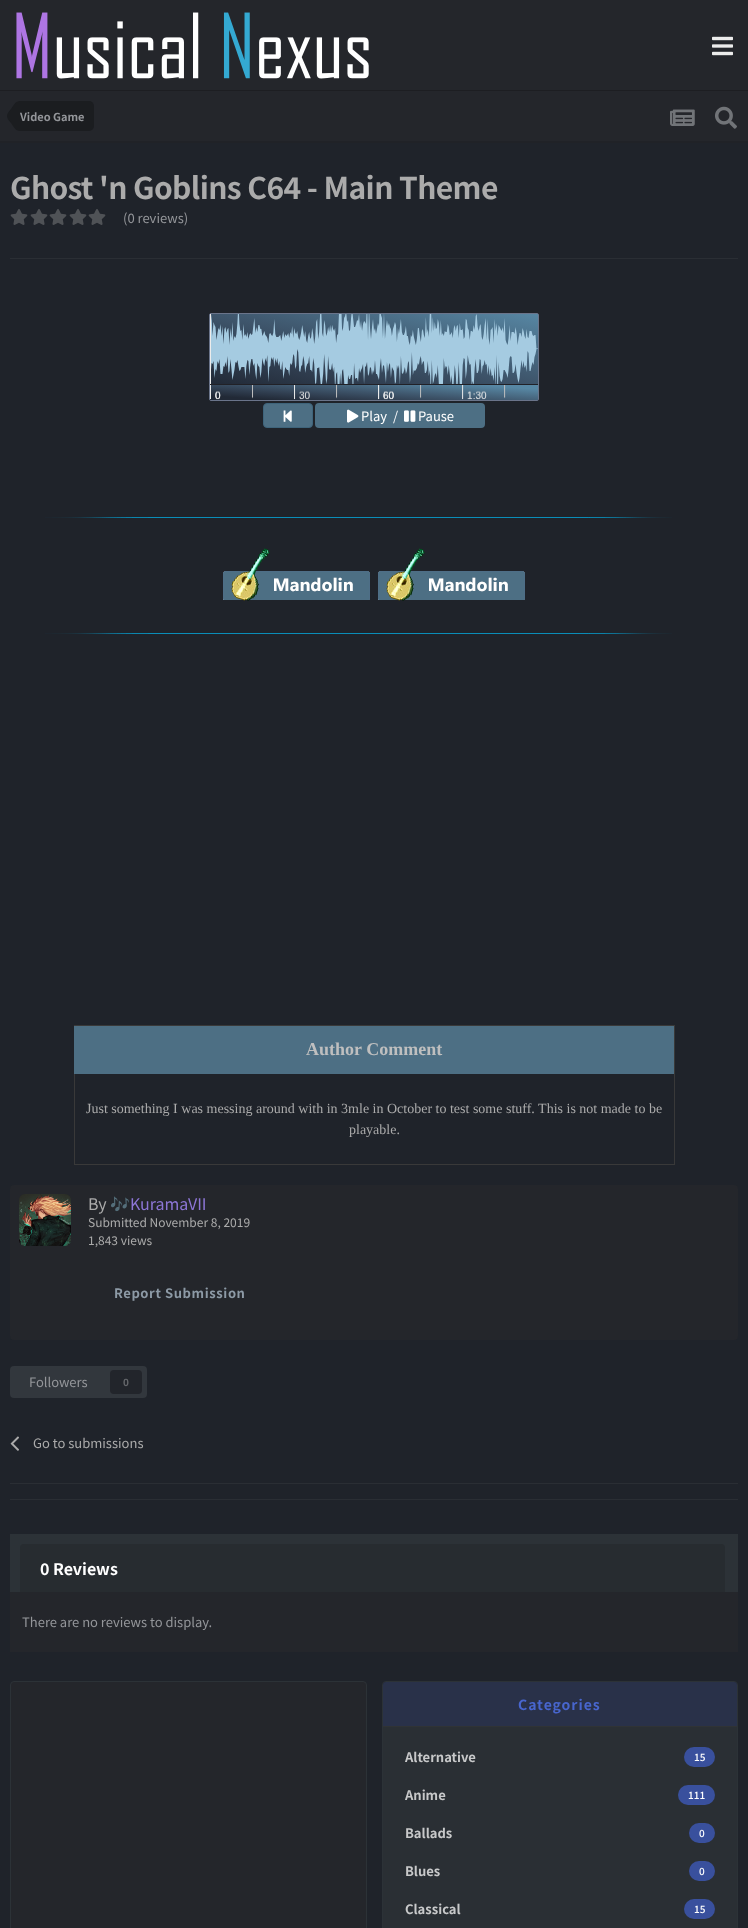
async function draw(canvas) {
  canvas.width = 748;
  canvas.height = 1928;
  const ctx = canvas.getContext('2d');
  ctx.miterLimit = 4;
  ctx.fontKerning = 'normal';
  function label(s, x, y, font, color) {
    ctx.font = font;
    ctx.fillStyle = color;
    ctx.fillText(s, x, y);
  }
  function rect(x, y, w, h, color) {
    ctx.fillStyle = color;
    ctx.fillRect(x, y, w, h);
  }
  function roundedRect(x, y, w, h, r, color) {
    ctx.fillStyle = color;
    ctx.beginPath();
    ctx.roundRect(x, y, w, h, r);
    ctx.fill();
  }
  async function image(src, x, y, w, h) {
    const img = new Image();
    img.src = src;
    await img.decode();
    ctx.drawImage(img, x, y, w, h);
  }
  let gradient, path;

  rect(0, 0, 748, 1928, '#24262b');
  rect(0, 90, 748, 1, '#1d1e22');
  await image('assets/img1.png', 16, 12, 353, 67);
  await image('assets/img2.png', 712, 36, 21, 20);
  rect(0, 141, 748, 2, '#202227');
  ctx.fillStyle = '#1b1d20';
  ctx.beginPath();
  ctx.roundRect(20, 101, 74, 30, [0, 5, 5, 0]);
  ctx.fill();
  path = new Path2D('M20 116V131C15.5 131 13.5 126.5 11 123C9.5 121 7 119 7 116ZM20 116H7C7 113 9.5 111 11 109C13.5 105.5 15.5 101 20 101Z');
  ctx.fill(path);
  label('Video Game', 20, 121, 'bold 11px Noto Sans JP', '#94969a');
  await image('assets/img3.png', 670, 109, 25, 17);
  await image('assets/img4.png', 715, 106, 22, 23);
  rect(0, 143, 748, 1785, '#1f232a');
  ctx.letterSpacing = '-0.6px';
  label('Ghost \'n Goblins C64 - Main Theme', 10, 199, 'bold 30px Noto Sans JP', '#ababab');
  await image('assets/img5.png', 10, 209, 18, 16);
  await image('assets/img5.png', 30, 209, 18, 16);
  await image('assets/img5.png', 49, 209, 18, 16);
  await image('assets/img5.png', 69, 209, 18, 16);
  await image('assets/img5.png', 88, 209, 18, 16);
  ctx.letterSpacing = '0px';
  label('(0 reviews)', 123, 223, '13px Noto Sans JP', '#94969a');
  rect(10, 258, 728, 1, '#2a2e34');
  ctx.beginPath();
  ctx.roundRect(209.5, 313.5, 329, 87, 1.5);
  ctx.strokeStyle = '#6a748a';
  ctx.stroke();
  gradient = ctx.createLinearGradient(360, 416, 388, 282);
  gradient.addColorStop(0, '#212936');
  gradient.addColorStop(0.25, '#303e50');
  gradient.addColorStop(0.5, '#3e556b');
  gradient.addColorStop(0.75, '#4b6e87');
  gradient.addColorStop(1, '#5787a4');
  ctx.fillStyle = gradient;
  ctx.fillRect(211, 314, 327, 70);
  rect(210, 314, 1, 70, '#ececec');
  await image('assets/img6.png', 211, 314, 327, 70);
  rect(210, 384, 328, 1, '#212127');
  gradient = ctx.createLinearGradient(373, 407, 375, 378);
  gradient.addColorStop(0, '#212936');
  gradient.addColorStop(0.25, '#303e50');
  gradient.addColorStop(0.5, '#3e556b');
  gradient.addColorStop(0.75, '#4b6e87');
  gradient.addColorStop(1, '#5787a4');
  ctx.fillStyle = gradient;
  ctx.fillRect(210, 385, 328, 15);
  await image('assets/img7.png', 210, 385, 296, 15);
  ctx.fillStyle = '#4d6f84';
  ctx.beginPath();
  ctx.roundRect(263.5, 403.5, 49, 24, 3.5);
  ctx.fill();
  ctx.strokeStyle = '#3e647b';
  ctx.stroke();
  await image('assets/img8.png', 283, 410, 9, 12);
  roundedRect(315, 403, 170, 25, 4, '#4d6f84');
  await image('assets/img9.png', 347, 409, 12, 14);
  label('Play', 361, 421, '13px Noto Sans JP', '#fff');
  label('/', 393, 421, '13px Noto Sans JP', '#fff');
  await image('assets/img10.png', 404, 410, 12, 12);
  label('Pause', 418, 421, '13px Noto Sans JP', '#fff');
  await image('assets/img11.png', 45, 517, 627, 1);
  await image('assets/img12.png', 223, 548, 147, 53);
  await image('assets/img12.png', 378, 548, 147, 53);
  await image('assets/img11.png', 45, 633, 627, 1);
  rect(74, 1025, 601, 1, '#393939');
  rect(674, 1073, 1, 92, '#393939');
  rect(674, 1025, 1, 49, '#393939');
  rect(74, 1164, 601, 1, '#393939');
  rect(74, 1073, 1, 92, '#393939');
  rect(74, 1026, 600, 48, '#4d6f84');
  label('Author Comment', 306, 1055, 'bold 18px Liberation Serif', '#bfbfbf');
  label('Just something I was messing around with in 3mle in October to test some stuff. This is not made to be', 86, 1113, '14px Liberation Serif', '#ababab');
  label('playable.', 349, 1134, '14px Liberation Serif', '#ababab');
  roundedRect(10, 1185, 728, 155, 4, '#24262b');
  await image('assets/img13.png', 19, 1194, 52, 52);
  label('By', 88, 1210, '16px Noto Sans JP', '#ababab');
  label('🎶', 110, 1210, '16px Noto Color Emoji', '#ababab');
  label('KuramaVII', 130, 1210, '16px Noto Sans JP', '#8d76d6');
  label('Submitted November 8, 2019', 88, 1227, '12px Noto Sans JP', '#ababab');
  label('1,843 views', 88, 1245, '12px Noto Sans JP', '#ababab');
  ctx.letterSpacing = '0.6px';
  label('Report Submission', 114, 1298, 'bold 13px Noto Sans JP', '#8d9aa6');
  roundedRect(10, 1366, 137, 32, 4, '#32373d');
  ctx.letterSpacing = '0px';
  label('Followers', 29, 1387, '13px Noto Sans JP', '#94969a');
  roundedRect(110, 1370, 32, 24, 4, '#22252b');
  label('0', 123, 1386, 'bold 10px Noto Sans JP', '#65676b');
  await image('assets/img14.png', 10, 1436, 9, 15);
  label('Go to submissions', 33, 1448, '13px Noto Sans JP', '#ababab');
  rect(10, 1483, 728, 1, '#2a2e34');
  rect(10, 1499, 728, 1, '#2a2e34');
  rect(10, 1534, 728, 58, '#2c3237');
  ctx.fillStyle = '#272c30';
  ctx.beginPath();
  ctx.roundRect(20, 1544, 705, 48, [4, 4, 0, 0]);
  ctx.fill();
  label('0 Reviews', 40, 1575, 'bold 16px Noto Sans JP', '#fff');
  rect(10, 1592, 728, 60, '#24262b');
  label('There are no reviews to display.', 22, 1627, '13px Noto Sans JP', '#94969a');
  ctx.fillStyle = '#24262b';
  ctx.beginPath();
  ctx.roundRect(10.5, 1681.5, 356, 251, 3.5);
  ctx.fill();
  ctx.strokeStyle = '#2c3237';
  ctx.stroke();
  ctx.beginPath();
  ctx.roundRect(382.5, 1681.5, 355, 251, 3.5);
  ctx.stroke();
  ctx.fillStyle = '#293149';
  ctx.beginPath();
  ctx.roundRect(383, 1682, 354, 44, [3, 3, 0, 0]);
  ctx.fill();
  rect(383, 1726, 354, 1, '#303335');
  ctx.letterSpacing = '1px';
  label('Categories', 518, 1710, 'bold 14px Noto Sans JP', '#4866ce');
  rect(383, 1727, 354, 201, '#2a2f34');
  ctx.letterSpacing = '0px';
  label('Alternative', 405, 1762, 'bold 13px Noto Sans JP', '#c8c9ca');
  roundedRect(684, 1747, 31, 20, 10, '#39509d');
  label('15', 694, 1761, '500 10px Noto Sans JP', '#fff');
  label('Anime', 405, 1800, 'bold 13px Noto Sans JP', '#c8c9ca');
  roundedRect(678, 1785, 37, 20, 10, '#39509d');
  label('111', 688, 1799, '500 10px Noto Sans JP', '#fff');
  label('Ballads', 405, 1838, 'bold 13px Noto Sans JP', '#c8c9ca');
  roundedRect(689, 1823, 26, 20, 10, '#39509d');
  label('0', 699, 1837, '500 10px Noto Sans JP', '#fff');
  label('Blues', 405, 1876, 'bold 13px Noto Sans JP', '#c8c9ca');
  roundedRect(689, 1861, 26, 20, 10, '#39509d');
  label('0', 699, 1875, '500 10px Noto Sans JP', '#fff');
  label('Classical', 405, 1914, 'bold 13px Noto Sans JP', '#c8c9ca');
  roundedRect(684, 1899, 31, 20, 10, '#39509d');
  label('15', 694, 1913, '500 10px Noto Sans JP', '#fff');
}

draw(document.querySelector('canvas'));
